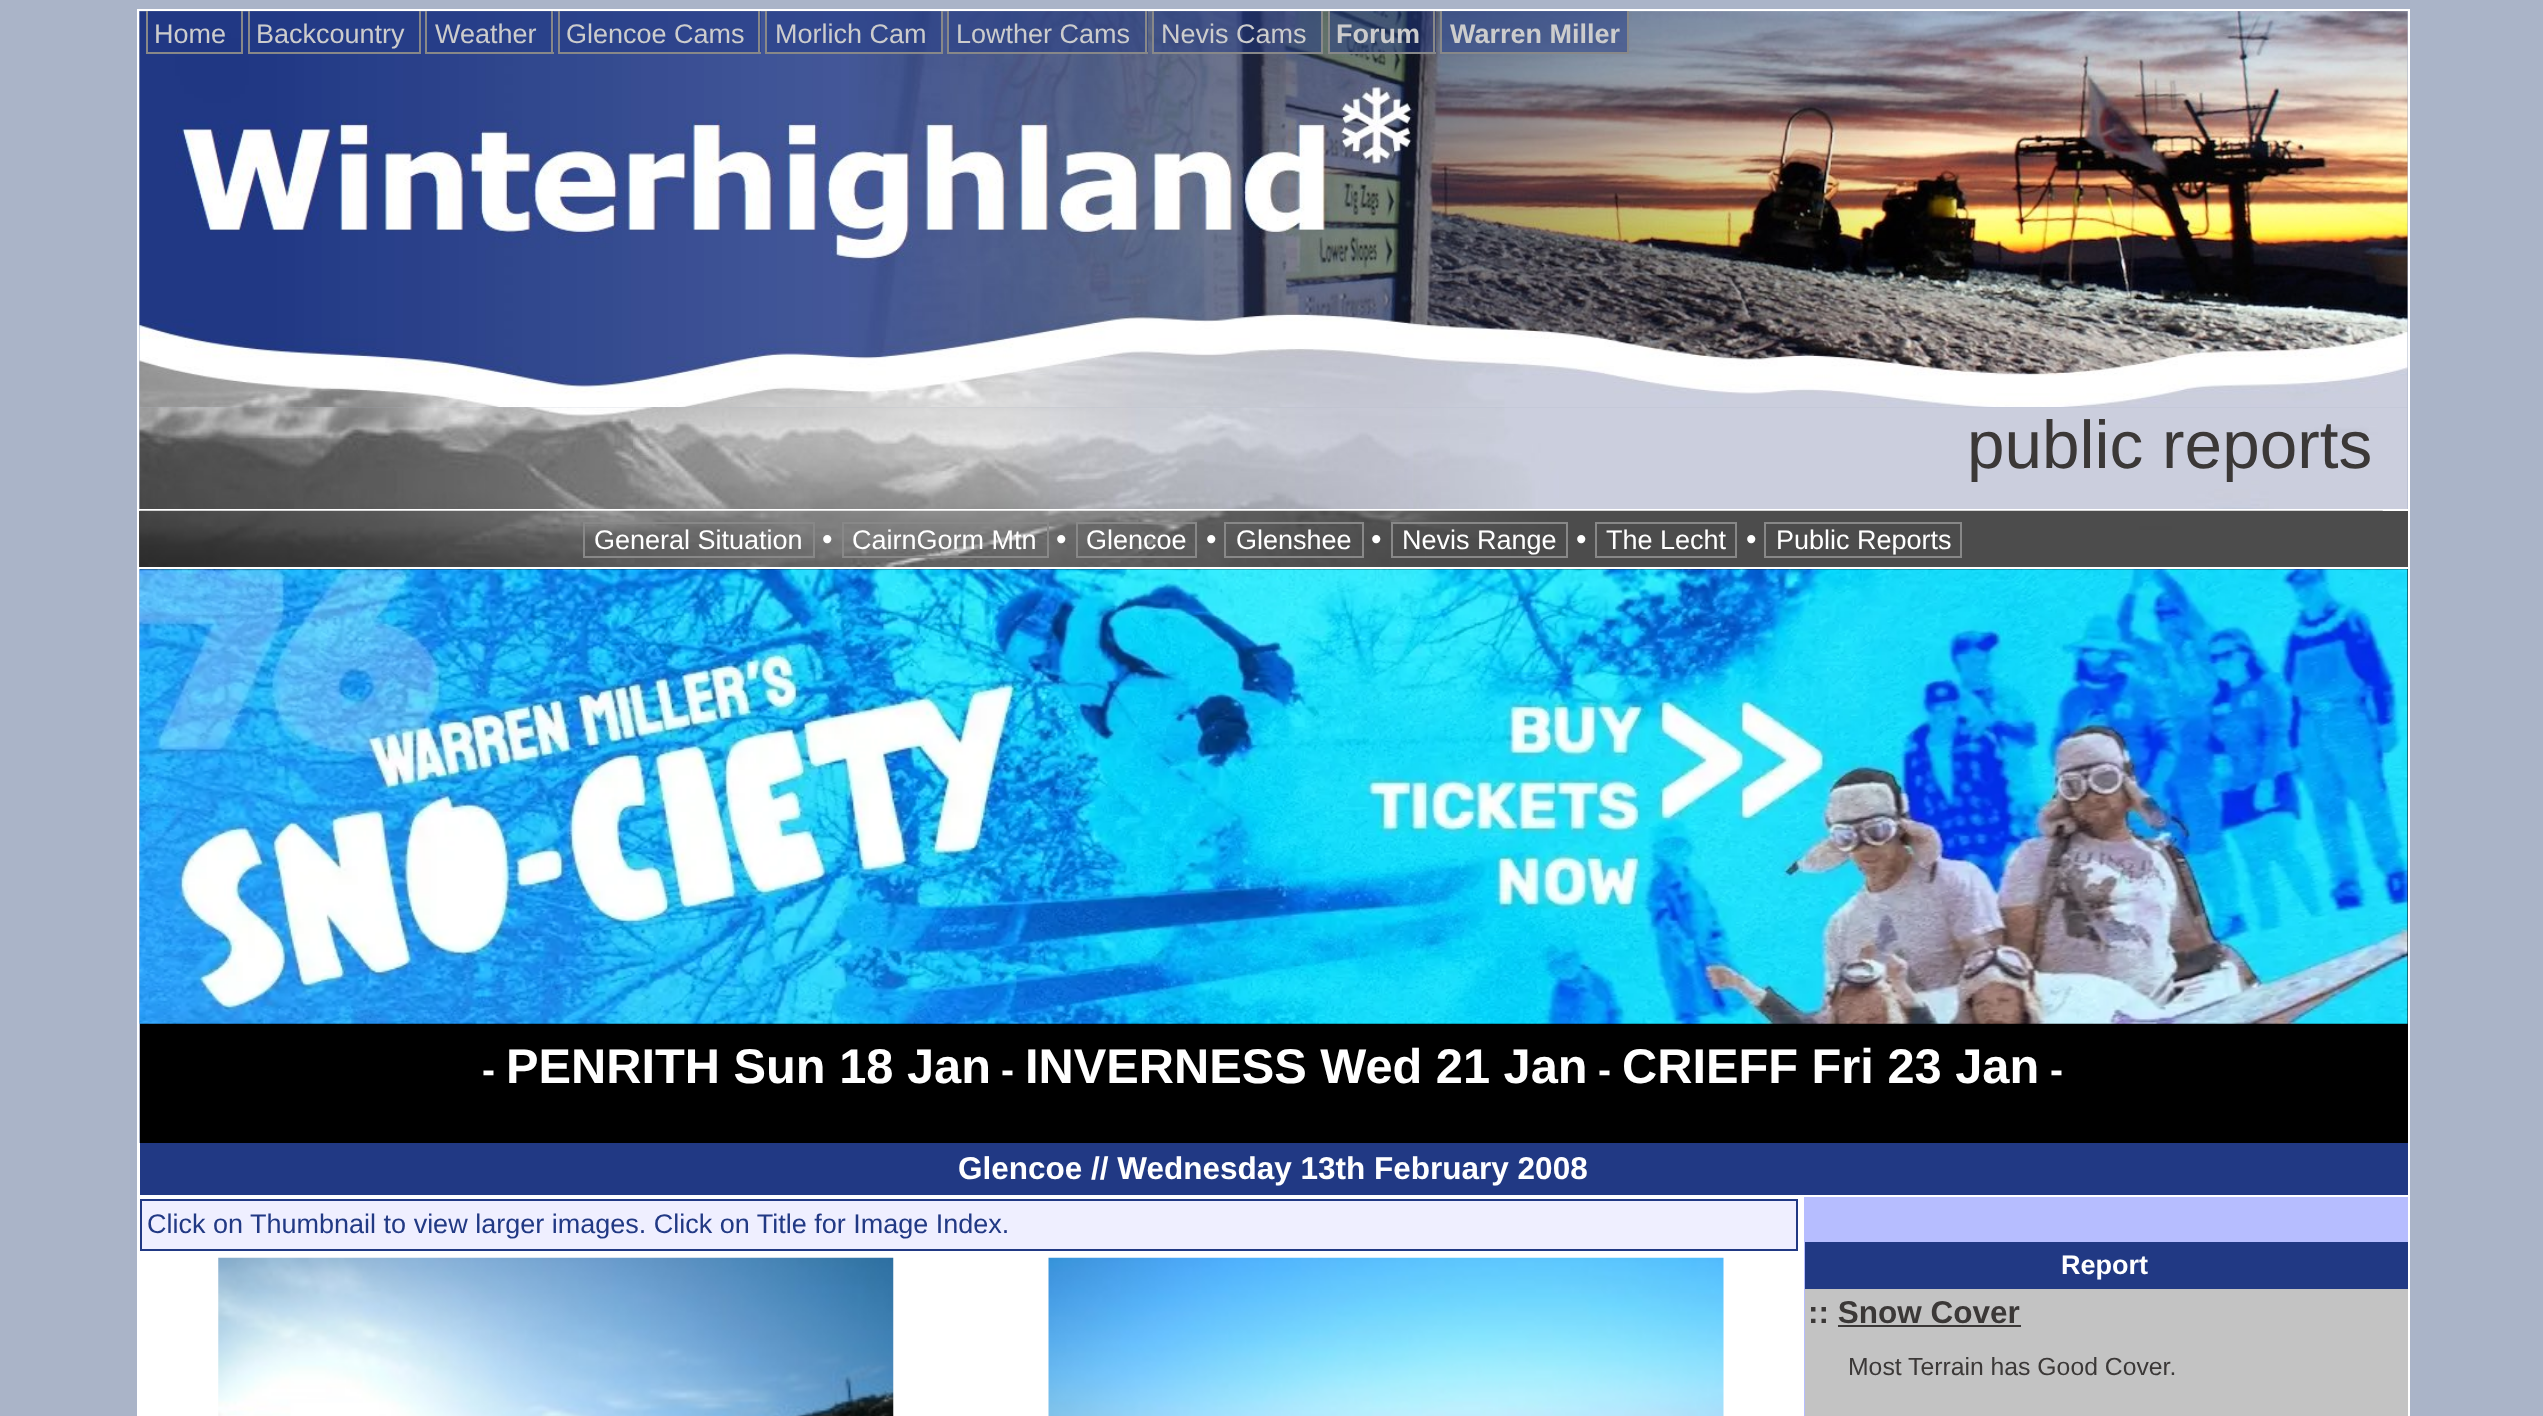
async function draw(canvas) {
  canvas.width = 2543;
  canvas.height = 1416;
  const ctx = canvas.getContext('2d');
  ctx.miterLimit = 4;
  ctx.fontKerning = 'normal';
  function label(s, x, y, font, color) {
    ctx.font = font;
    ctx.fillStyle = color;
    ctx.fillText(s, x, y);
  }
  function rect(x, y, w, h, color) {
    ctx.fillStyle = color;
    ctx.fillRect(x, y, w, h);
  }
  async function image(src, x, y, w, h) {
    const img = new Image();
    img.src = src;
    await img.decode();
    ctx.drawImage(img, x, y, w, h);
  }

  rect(0, 0, 2543, 1416, '#aab4c8');
  await image('assets/img1.png', 139, 11, 2269, 397);
  rect(137, 9, 2273, 2, '#fff');
  rect(2408, 9, 2, 1134, '#fff');
  rect(137, 9, 2, 398, '#fff');
  label('Home', 154, 43, '27px Liberation Sans', '#ccc');
  rect(148, 11, 93, 1, '#21398580');
  rect(241, 11, 2, 43, '#888');
  rect(146, 52, 97, 2, '#888');
  rect(146, 11, 2, 43, '#888');
  rect(250, 11, 169, 41, '#21398580');
  label('Backcountry', 256, 43, '27px Liberation Sans', '#ccc');
  rect(419, 11, 2, 43, '#888');
  rect(248, 52, 173, 2, '#888');
  rect(248, 11, 2, 43, '#888');
  rect(427, 11, 127, 41, '#21398580');
  label('Weather', 435, 43, '27px Liberation Sans', '#ccc');
  rect(551, 11, 2, 43, '#888');
  rect(425, 52, 129, 2, '#888');
  rect(425, 11, 2, 43, '#888');
  rect(560, 11, 201, 41, '#21398580');
  label('Glencoe Cams', 566, 43, '27px Liberation Sans', '#ccc');
  rect(758, 11, 2, 43, '#888');
  rect(558, 52, 203, 2, '#888');
  rect(558, 11, 2, 43, '#888');
  rect(767, 11, 174, 41, '#21398580');
  label('Morlich Cam', 775, 43, '27px Liberation Sans', '#ccc');
  rect(941, 11, 2, 43, '#888');
  rect(765, 52, 178, 2, '#888');
  rect(765, 11, 2, 43, '#888');
  rect(949, 11, 199, 41, '#21398580');
  label('Lowther Cams', 956, 43, '27px Liberation Sans', '#ccc');
  rect(1145, 11, 2, 43, '#888');
  rect(947, 52, 201, 2, '#888');
  rect(947, 11, 2, 43, '#888');
  rect(1154, 11, 167, 41, '#21398580');
  label('Nevis Cams', 1161, 43, '27px Liberation Sans', '#ccc');
  rect(1321, 11, 2, 43, '#888');
  rect(1152, 52, 171, 2, '#888');
  rect(1152, 11, 2, 43, '#888');
  rect(1330, 11, 106, 41, '#21398580');
  label('Forum', 1336, 43, 'bold 27px Liberation Sans', '#ccc');
  rect(1433, 11, 2, 43, '#888');
  rect(1328, 52, 108, 2, '#888');
  rect(1328, 11, 2, 43, '#888');
  rect(1442, 11, 185, 41, '#21398580');
  label('Warren Miller', 1450, 43, 'bold 27px Liberation Sans', '#ccc');
  rect(1627, 11, 2, 43, '#888');
  rect(1440, 52, 189, 2, '#888');
  rect(1440, 11, 2, 43, '#888');
  await image('assets/img2.png', 139, 407, 2269, 102);
  rect(137, 509, 2273, 2, '#fff');
  rect(137, 407, 2, 104, '#fff');
  label('public reports', 1967, 468, '67.5px Liberation Sans', '#3b3837');
  rect(139, 511, 2269, 56, '#4c4c4c');
  await image('assets/img3.png', 139, 510, 2244, 57);
  rect(137, 567, 2273, 2, '#fff');
  rect(137, 511, 2, 632, '#fff');
  ctx.strokeStyle = '#888';
  ctx.lineWidth = 2;
  ctx.strokeRect(584, 523, 230, 34);
  label('General Situation', 594, 549, '27px Liberation Sans', '#fff');
  label('•', 822, 549, '30px Liberation Sans', '#fff');
  ctx.strokeRect(843, 523, 205, 34);
  label('CairnGorm Mtn', 852, 549, '27px Liberation Sans', '#fff');
  label('•', 1056, 549, '30px Liberation Sans', '#fff');
  ctx.strokeRect(1077, 523, 119, 34);
  label('Glencoe', 1086, 549, '27px Liberation Sans', '#fff');
  label('•', 1206, 549, '30px Liberation Sans', '#fff');
  ctx.strokeRect(1225, 523, 138, 34);
  label('Glenshee', 1236, 549, '27px Liberation Sans', '#fff');
  label('•', 1371, 549, '30px Liberation Sans', '#fff');
  ctx.strokeRect(1392, 523, 175, 34);
  label('Nevis Range', 1402, 549, '27px Liberation Sans', '#fff');
  label('•', 1576, 549, '30px Liberation Sans', '#fff');
  ctx.strokeRect(1596, 523, 140, 34);
  label('The Lecht', 1606, 549, '27px Liberation Sans', '#fff');
  label('•', 1746, 549, '30px Liberation Sans', '#fff');
  ctx.strokeRect(1765, 523, 196, 34);
  label('Public Reports', 1776, 549, '27px Liberation Sans', '#fff');
  rect(140, 569, 2268, 574, '#000');
  await image('assets/img4.png', 139, 569, 2269, 455);
  label('-', 482, 1083, 'bold 39px Liberation Sans', '#fff');
  label('PENRITH Sun 18 Jan', 506, 1083, 'bold 48.75px Liberation Sans', '#fff');
  label('-', 1001, 1083, 'bold 39px Liberation Sans', '#fff');
  label('INVERNESS Wed 21 Jan', 1025, 1083, 'bold 48.75px Liberation Sans', '#fff');
  label('-', 1598, 1083, 'bold 39px Liberation Sans', '#fff');
  label('CRIEFF Fri 23 Jan', 1622, 1083, 'bold 48.75px Liberation Sans', '#fff');
  label('-', 2050, 1083, 'bold 39px Liberation Sans', '#fff');
  rect(137, 1143, 2273, 273, '#fff');
  rect(140, 1143, 2268, 52, '#213984');
  label('Glencoe // Wednesday 13th February 2008', 958, 1179, 'bold 31.5px Liberation Sans', '#fff');
  ctx.fillStyle = '#efefff';
  ctx.beginPath();
  ctx.rect(141, 1200, 1656, 50);
  ctx.fill();
  ctx.strokeStyle = '#213984';
  ctx.stroke();
  label('Click on Thumbnail to view larger images. Click on Title for Image Index.', 147, 1233, '27px Liberation Sans', '#213984');
  await image('assets/img5.png', 218, 1257, 676, 159);
  await image('assets/img6.png', 1048, 1257, 676, 159);
  rect(1804, 1197, 604, 219, '#b6bdff');
  rect(1805, 1242, 603, 47, '#213984');
  label('Report', 2061, 1274, 'bold 27px Liberation Sans', '#fff');
  rect(1805, 1289, 603, 127, '#c3c3c3');
  label(':: Snow Cover', 1808, 1323, 'bold 31.5px Liberation Sans', '#3b3837');
  rect(1838, 1325, 183, 2, '#3b3837');
  label('Most Terrain has Good Cover.', 1848, 1375, '24.75px Liberation Sans', '#3b3837');
}

draw(document.querySelector('canvas'));
